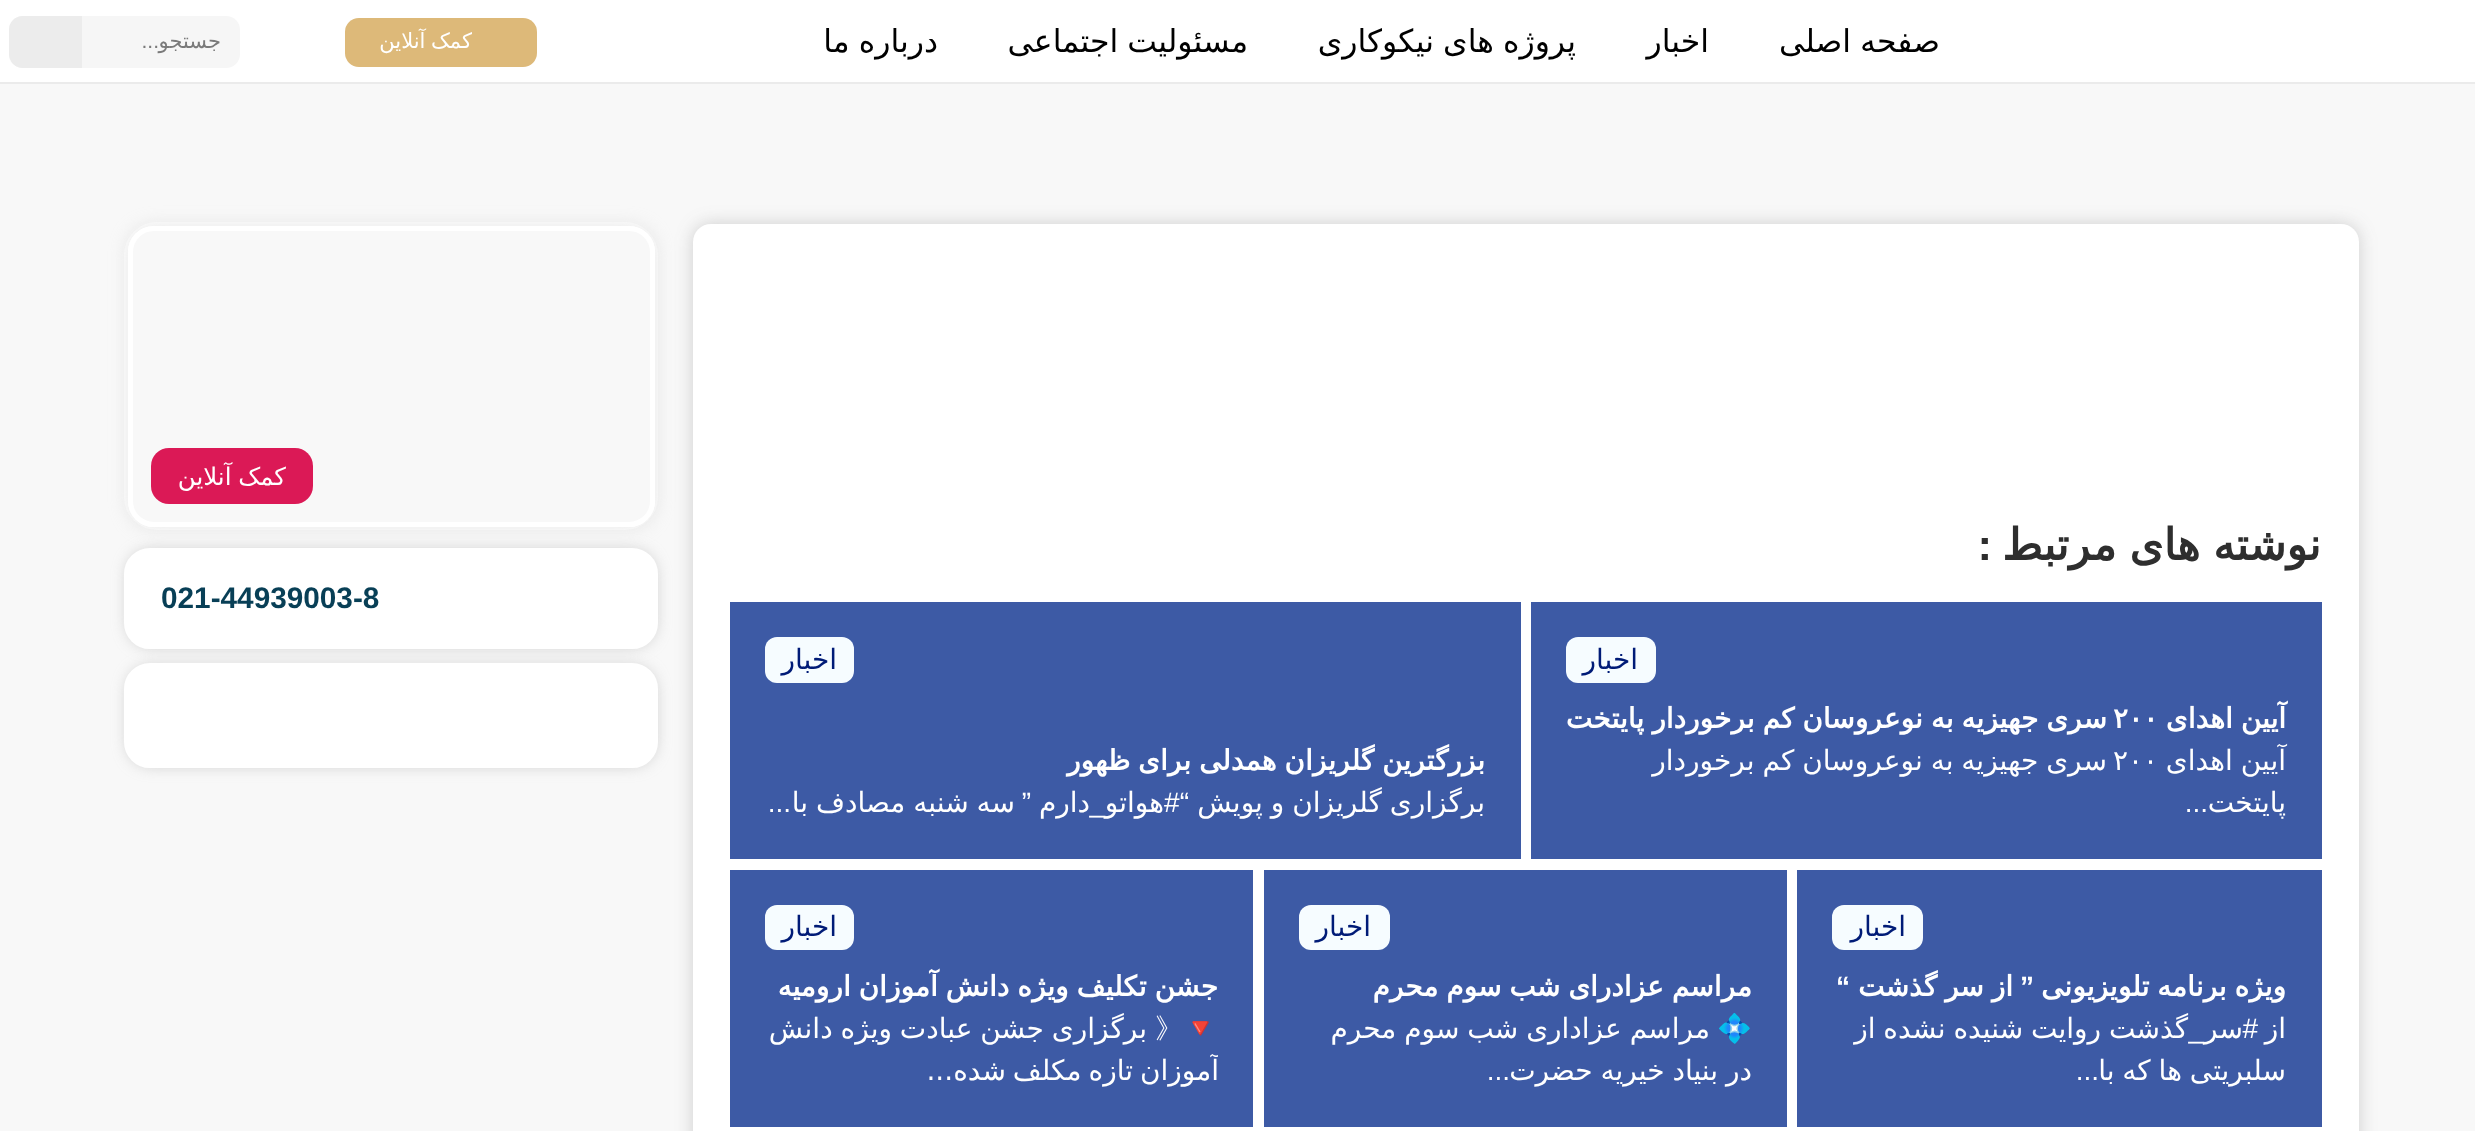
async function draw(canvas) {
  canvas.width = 2475;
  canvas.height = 1131;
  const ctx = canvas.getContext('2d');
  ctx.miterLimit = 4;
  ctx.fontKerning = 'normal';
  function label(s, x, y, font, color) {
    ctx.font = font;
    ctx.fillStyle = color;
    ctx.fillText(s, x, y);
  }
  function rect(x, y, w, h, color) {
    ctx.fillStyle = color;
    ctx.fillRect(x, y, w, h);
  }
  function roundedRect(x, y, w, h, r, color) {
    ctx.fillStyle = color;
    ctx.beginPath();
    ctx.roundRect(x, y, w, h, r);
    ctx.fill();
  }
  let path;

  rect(0, 0, 2475, 1131, '#f8f8f8');
  rect(0, 0, 2475, 82, '#fff');
  rect(0, 82, 2475, 2, '#ebebeb');
  ctx.wordSpacing = '-1px';
  ctx.direction = 'rtl';
  label('صفحه اصلی', 1940, 52, '31.5px DejaVu Sans', '#000');
  ctx.wordSpacing = '0px';
  label('اخبار', 1709, 52, '31.5px DejaVu Sans', '#000');
  ctx.wordSpacing = '-1px';
  label('پروژه های نیکوکاری', 1576, 52, '31.5px DejaVu Sans', '#000');
  label('مسئولیت اجتماعی', 1248, 52, '31.5px DejaVu Sans', '#000');
  label('درباره ما', 938, 52, '31.5px DejaVu Sans', '#000');
  roundedRect(345, 18, 192, 49, 14, '#ddb979');
  label('کمک آنلاین', 472, 48, '21px DejaVu Sans', '#fff');
  roundedRect(9, 16, 231, 52, 14, '#f6f6f6');
  ctx.wordSpacing = '0px';
  label('جستجو', 221, 48, '21px DejaVu Sans', '#7a7a7a');
  label('...', 159, 48, '21px Liberation Sans', '#7a7a7a');
  ctx.fillStyle = '#ececec';
  ctx.beginPath();
  ctx.roundRect(9, 16, 73, 52, [14, 0, 0, 14]);
  ctx.fill();
  ctx.fillStyle = '#4d4d4d3d';
  ctx.filter = 'blur(9px)';
  ctx.beginPath();
  ctx.roundRect(693, 224, 1666, 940, 18);
  ctx.fill();
  ctx.filter = 'none';
  roundedRect(693, 224, 1666, 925, 18, '#fff');
  ctx.wordSpacing = '-1px';
  label('نوشته های مرتبط', 2321, 560, 'bold 43.75px DejaVu Sans', '#2e2e2e');
  ctx.wordSpacing = '0px';
  label(':', 1992, 560, 'bold 43.75px Liberation Sans', '#2e2e2e');
  rect(1531, 602, 791, 257, '#3d5aa5');
  roundedRect(1566, 637, 90, 46, 12, '#f6fcff');
  label('اخبار', 1638, 669, '28px DejaVu Sans', '#001b77');
  ctx.wordSpacing = '-1px';
  label('آیین اهدای', 2286, 728, 'bold 28px DejaVu Sans', '#fff');
  ctx.wordSpacing = '0px';
  ctx.direction = 'ltr';
  label('۲۰۰', 2113, 728, 'bold 28px DejaVu Sans', '#fff');
  ctx.wordSpacing = '-1px';
  ctx.direction = 'rtl';
  label('سری جهیزیه به نوعروسان کم برخوردار', 2107, 728, 'bold 28px DejaVu Sans', '#fff');
  ctx.wordSpacing = '0px';
  label('پایتخت', 1644, 728, 'bold 28px DejaVu Sans', '#fff');
  ctx.wordSpacing = '-1px';
  label('آیین اهدای', 2286, 770, '28px DejaVu Sans', '#fff');
  ctx.wordSpacing = '0px';
  ctx.direction = 'ltr';
  label('۲۰۰', 2113, 770, '28px DejaVu Sans', '#fff');
  ctx.wordSpacing = '-1px';
  ctx.direction = 'rtl';
  label('سری جهیزیه به نوعروسان کم برخوردار', 2107, 770, '28px DejaVu Sans', '#fff');
  ctx.wordSpacing = '0px';
  label('پایتخت', 2286, 812, '28px DejaVu Sans', '#fff');
  label('...', 2208, 812, '28px Liberation Sans', '#fff');
  rect(730, 602, 791, 257, '#3d5aa5');
  roundedRect(765, 637, 89, 46, 12, '#f6fcff');
  label('اخبار', 837, 669, '28px DejaVu Sans', '#001b77');
  ctx.wordSpacing = '-1px';
  label('بزرگترین گلریزان همدلی برای ظهور', 1485, 770, 'bold 28px DejaVu Sans', '#fff');
  label('برگزاری گلریزان و پویش', 1485, 812, '28px DejaVu Sans', '#fff');
  ctx.wordSpacing = '0px';
  label('“#', 1189, 812, '28px Liberation Sans', '#fff');
  label('_', 1105, 812, '28px Liberation Sans', '#fff');
  label('هواتو', 1164, 812, '28px DejaVu Sans', '#fff');
  label('دارم', 1090, 812, '28px DejaVu Sans', '#fff');
  label('”', 1031, 812, '28px Liberation Sans', '#fff');
  ctx.wordSpacing = '-1px';
  label('سه شنبه مصادف با', 1015, 812, '28px DejaVu Sans', '#fff');
  ctx.wordSpacing = '0px';
  label('...', 791, 812, '28px Liberation Sans', '#fff');
  rect(1797, 870, 525, 257, '#3d5aa5');
  roundedRect(1832, 905, 91, 45, 12, '#f6fcff');
  label('اخبار', 1906, 936, '28px DejaVu Sans', '#001b77');
  ctx.wordSpacing = '-1px';
  label('ویژه برنامه تلویزیونی', 2286, 996, 'bold 28px DejaVu Sans', '#fff');
  ctx.wordSpacing = '0px';
  label('”', 2034, 996, 'bold 28px Liberation Sans', '#fff');
  ctx.wordSpacing = '-1px';
  label('از سر گذشت', 2013, 996, 'bold 28px DejaVu Sans', '#fff');
  ctx.wordSpacing = '0px';
  ctx.direction = 'ltr';
  label('“', 1836, 996, 'bold 28px Liberation Sans', '#fff');
  ctx.direction = 'rtl';
  label('از', 2286, 1038, '28px DejaVu Sans', '#fff');
  label('#', 2258, 1038, '28px Liberation Sans', '#fff');
  ctx.wordSpacing = '-1px';
  label('گذشت روایت شنیده نشده از', 2188, 1038, '28px DejaVu Sans', '#fff');
  ctx.wordSpacing = '0px';
  label('_', 2204, 1038, '28px Liberation Sans', '#fff');
  label('سر', 2243, 1038, '28px DejaVu Sans', '#fff');
  ctx.wordSpacing = '-1px';
  label('سلبریتی ها که با', 2286, 1080, '28px DejaVu Sans', '#fff');
  ctx.wordSpacing = '0px';
  label('...', 2099, 1080, '28px Liberation Sans', '#fff');
  rect(1264, 870, 523, 257, '#3d5aa5');
  roundedRect(1299, 905, 91, 45, 12, '#f6fcff');
  label('اخبار', 1371, 936, '28px DejaVu Sans', '#001b77');
  ctx.wordSpacing = '-1px';
  label('مراسم عزادرای شب سوم محرم', 1752, 996, 'bold 28px DejaVu Sans', '#fff');
  ctx.wordSpacing = '0px';
  label('💠', 1752, 1038, '28px Noto Color Emoji', '#fff');
  ctx.wordSpacing = '-1px';
  label('مراسم عزاداری شب سوم محرم', 1710, 1038, '28px DejaVu Sans', '#fff');
  label('در بنیاد خیریه حضرت', 1752, 1080, '28px DejaVu Sans', '#fff');
  ctx.wordSpacing = '0px';
  label('...', 1510, 1080, '28px Liberation Sans', '#fff');
  rect(730, 870, 523, 257, '#3d5aa5');
  roundedRect(765, 905, 89, 45, 12, '#f6fcff');
  label('اخبار', 837, 936, '28px DejaVu Sans', '#001b77');
  ctx.wordSpacing = '-1px';
  label('جشن تکلیف ویژه دانش آموزان ارومیه', 1218, 996, 'bold 28px DejaVu Sans', '#fff');
  ctx.wordSpacing = '0px';
  label('🔻', 1218, 1038, '28px Noto Color Emoji', '#fff');
  label('《', 1183, 1038, '500 28px WenQuanYi Zen Hei', '#fff');
  ctx.wordSpacing = '-1px';
  label('برگزاری جشن عبادت ویژه دانش', 1147, 1038, '28px DejaVu Sans', '#fff');
  ctx.save();
  ctx.beginPath();
  ctx.rect(765, 1008, 453, 84);
  ctx.clip();
  ctx.wordSpacing = '-2px';
  label('آموزان تازه مکلف شده...', 1219, 1080, '28px DejaVu Sans', '#fff');
  ctx.restore();
  ctx.beginPath();
  ctx.roundRect(126, 224, 530, 304, 31);
  ctx.strokeStyle = '#fff';
  ctx.lineWidth = 4;
  ctx.stroke();
  ctx.save();
  path = new Path2D('M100 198H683V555H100ZM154 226H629C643.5 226 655 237.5 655 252V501C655 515.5 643.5 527 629 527H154C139.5 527 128 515.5 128 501V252C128 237.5 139.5 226 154 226Z');
  ctx.clip(path, 'evenodd');
  ctx.fillStyle = '#cbcbcb80';
  ctx.filter = 'blur(9px)';
  ctx.beginPath();
  ctx.roundRect(128, 226, 527, 301, 26);
  ctx.fill();
  ctx.filter = 'none';
  ctx.restore();
  ctx.beginPath();
  ctx.roundRect(130.5, 228.5, 522, 296, 23.5);
  ctx.lineWidth = 5;
  ctx.stroke();
  roundedRect(151, 448, 162, 56, 18, '#db1956');
  label('کمک آنلاین', 286, 485, '24.5px DejaVu Sans', '#fff');
  ctx.fillStyle = '#98989880';
  ctx.filter = 'blur(8px)';
  ctx.beginPath();
  ctx.roundRect(128, 551, 527, 95, 23);
  ctx.fill();
  ctx.filter = 'none';
  ctx.fillStyle = '#fff';
  ctx.beginPath();
  ctx.roundRect(126.5, 550.5, 529, 96, 23.5);
  ctx.fill();
  ctx.stroke();
  ctx.wordSpacing = '0px';
  ctx.direction = 'ltr';
  label('021-44939003-8', 161, 608, 'bold 29.75px Liberation Sans', '#083f56');
  ctx.fillStyle = '#98989880';
  ctx.filter = 'blur(8px)';
  ctx.beginPath();
  ctx.roundRect(128, 667, 527, 98, 23);
  ctx.fill();
  ctx.filter = 'none';
  ctx.fillStyle = '#fff';
  ctx.beginPath();
  ctx.roundRect(126.5, 665.5, 529, 100, 23.5);
  ctx.fill();
  ctx.stroke();
}

draw(document.querySelector('canvas'));
